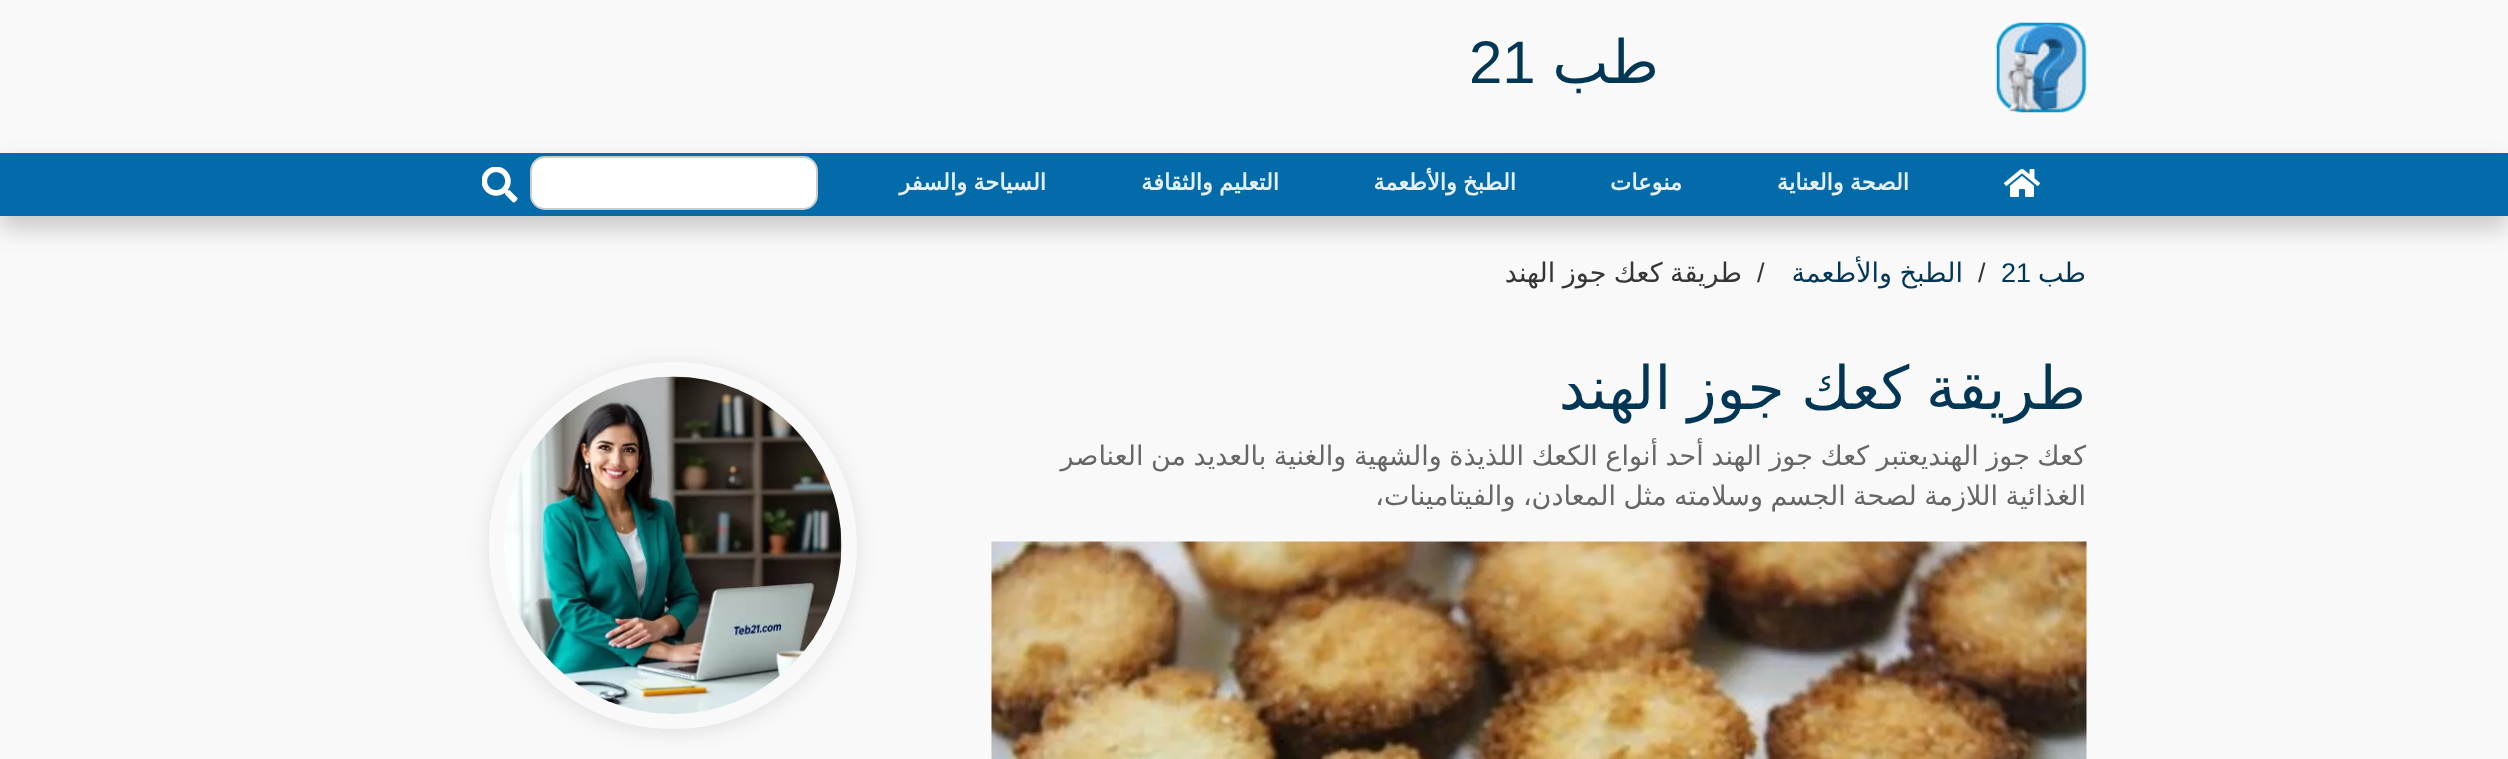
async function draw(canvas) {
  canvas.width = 2508;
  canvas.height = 759;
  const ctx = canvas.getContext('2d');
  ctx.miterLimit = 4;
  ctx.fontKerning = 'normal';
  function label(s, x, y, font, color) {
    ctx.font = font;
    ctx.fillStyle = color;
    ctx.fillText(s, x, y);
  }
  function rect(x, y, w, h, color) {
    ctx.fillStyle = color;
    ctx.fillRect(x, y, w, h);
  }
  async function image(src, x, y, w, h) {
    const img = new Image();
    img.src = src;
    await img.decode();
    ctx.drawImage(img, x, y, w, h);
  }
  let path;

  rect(0, 0, 2508, 759, '#f9f9f9');
  await image('assets/img1.png', 1996, 22, 91, 91);
  ctx.direction = 'rtl';
  label('طب', 1659, 83, '60px DejaVu Sans', '#023655');
  ctx.direction = 'ltr';
  label('21', 1469, 83, '60px Liberation Sans', '#023655');
  ctx.fillStyle = '#00000033';
  ctx.filter = 'blur(12px)';
  ctx.beginPath();
  ctx.rect(0, 165, 2508, 63);
  ctx.fill();
  ctx.filter = 'none';
  rect(0, 153, 2508, 63, '#036baa');
  await image('assets/img2.png', 2004, 169, 36, 28);
  ctx.wordSpacing = '-1px';
  ctx.direction = 'rtl';
  label('الصحة والعناية', 1909, 190, 'bold 22.5px DejaVu Sans', '#e6f0f7');
  ctx.wordSpacing = '0px';
  label('منوعات', 1682, 190, 'bold 22.5px DejaVu Sans', '#e6f0f7');
  ctx.wordSpacing = '-1px';
  label('الطبخ والأطعمة', 1516, 190, 'bold 22.5px DejaVu Sans', '#e6f0f7');
  label('التعليم والثقافة', 1279, 190, 'bold 22.5px DejaVu Sans', '#e6f0f7');
  label('السياحة والسفر', 1046, 190, 'bold 22.5px DejaVu Sans', '#e6f0f7');
  ctx.fillStyle = '#fff';
  ctx.beginPath();
  ctx.roundRect(531, 157, 286, 52, 14);
  ctx.fill();
  ctx.strokeStyle = '#ccc';
  ctx.lineWidth = 2;
  ctx.stroke();
  await image('assets/img3.png', 482, 167, 36, 36);
  ctx.wordSpacing = '0px';
  label('طب', 2086, 282, '27px DejaVu Sans', '#023655');
  ctx.direction = 'ltr';
  label('21', 2001, 282, '27px Liberation Sans', '#023655');
  label('/', 1978, 282, '27px Liberation Sans', '#353535');
  ctx.wordSpacing = '-1.1px';
  ctx.direction = 'rtl';
  label('الطبخ والأطعمة', 1963, 282, '27px DejaVu Sans', '#023655');
  ctx.wordSpacing = '0px';
  ctx.direction = 'ltr';
  label('/', 1757, 282, '27px Liberation Sans', '#353535');
  ctx.wordSpacing = '-1.1px';
  ctx.direction = 'rtl';
  label('طريقة كعك جوز الهند', 1742, 282, '27px DejaVu Sans', '#353535');
  ctx.wordSpacing = '-2.5px';
  label('طريقة كعك جوز الهند', 2086, 409, '60px DejaVu Sans', '#023655');
  ctx.wordSpacing = '-1.1px';
  label('كعك جوز الهنديعتبر كعك جوز الهند أحد أنواع الكعك اللذيذة والشهية والغنية بالعديد من العناصر', 2086, 465, '27px DejaVu Sans', '#666');
  label('الغذائية اللازمة لصحة الجسم وسلامته مثل المعادن، والفيتامينات،', 2086, 505, '27px DejaVu Sans', '#666');
  await image('assets/img4.png', 991, 541, 1096, 218);
  ctx.save();
  path = new Path2D('M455 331H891V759H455ZM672.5 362H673.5C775 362 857 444 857 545.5C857 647 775 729 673.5 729H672.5C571 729 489 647 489 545.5C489 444 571 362 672.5 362Z');
  ctx.clip(path, 'evenodd');
  ctx.fillStyle = '#0000001a';
  ctx.filter = 'blur(11px)';
  ctx.beginPath();
  ctx.roundRect(489, 365, 368, 367, 183.5);
  ctx.fill();
  ctx.filter = 'none';
  ctx.restore();
  await image('assets/img5.png', 504, 376, 338, 338);
}

draw(document.querySelector('canvas'));
